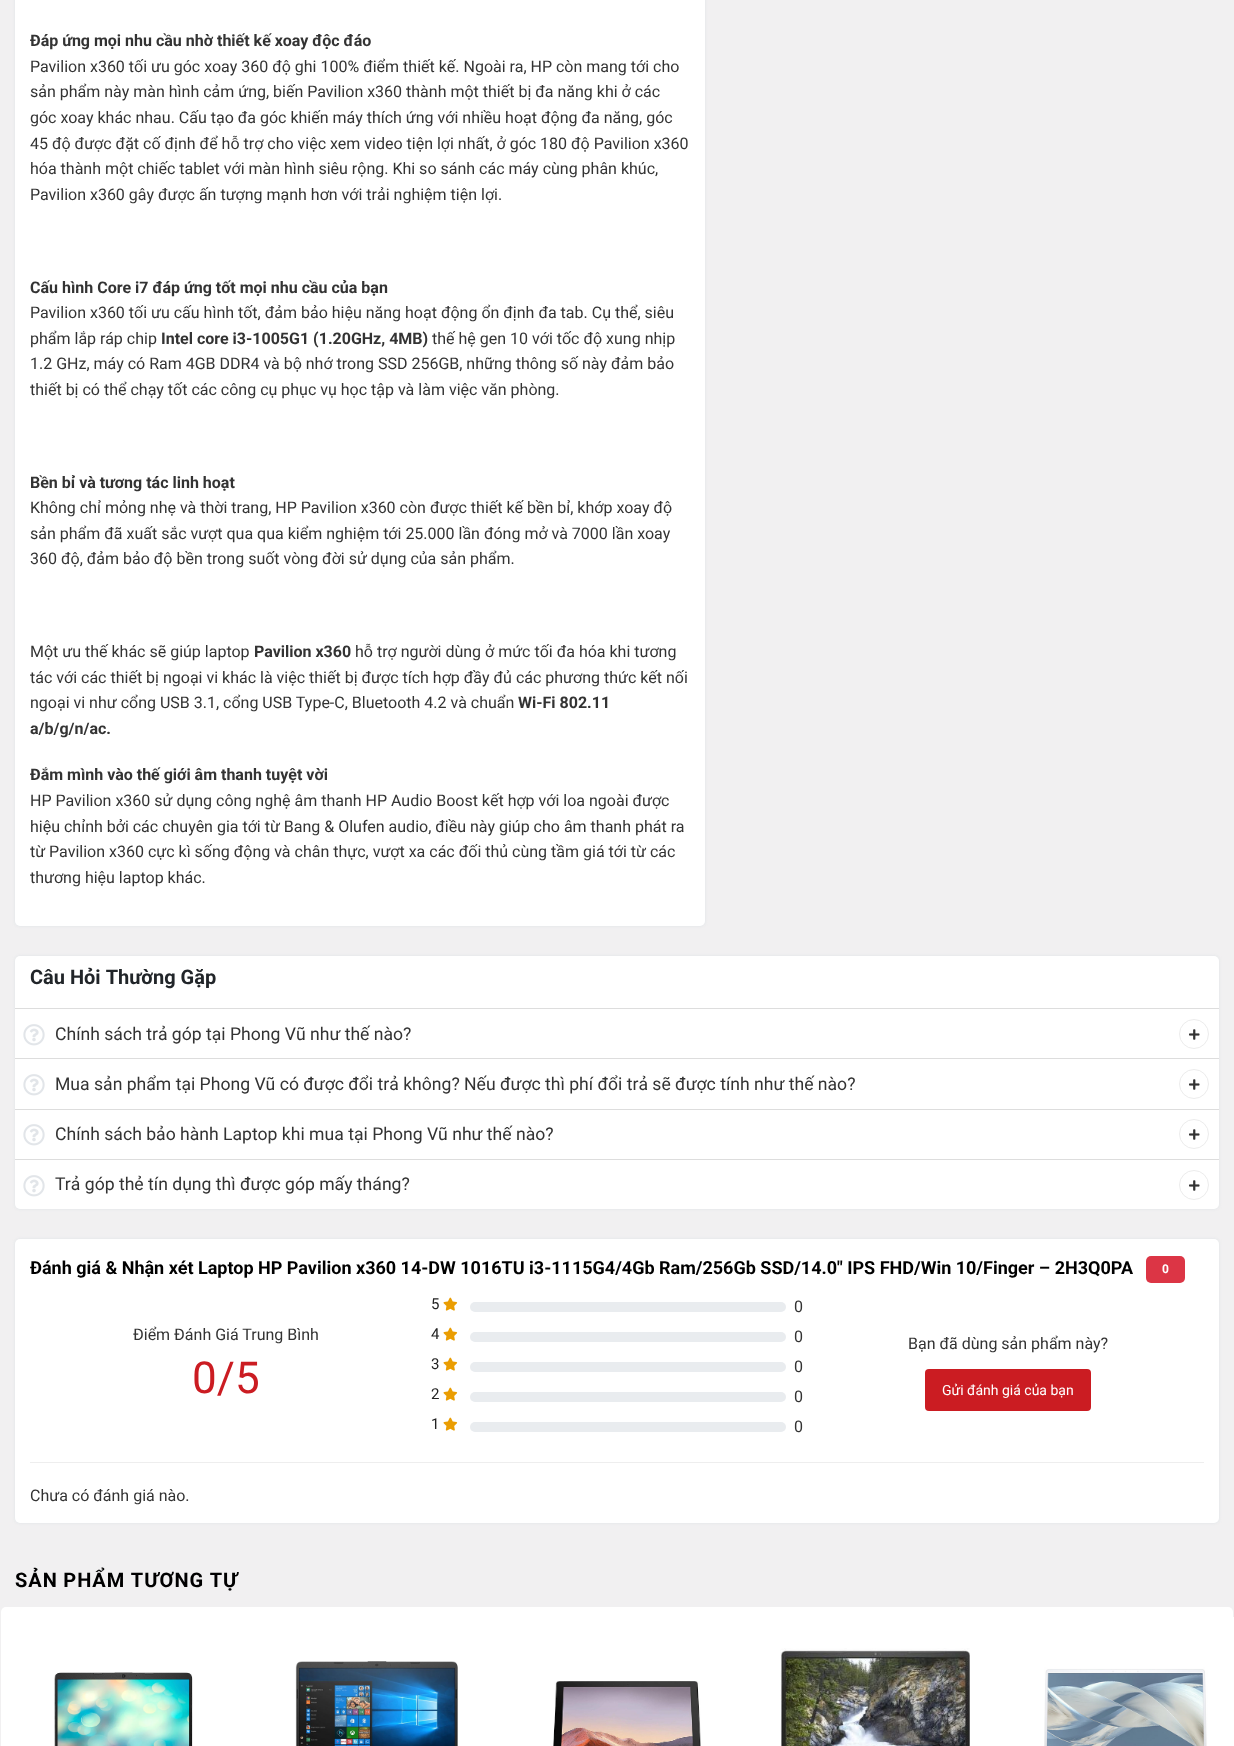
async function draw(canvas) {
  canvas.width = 1234;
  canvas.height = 1746;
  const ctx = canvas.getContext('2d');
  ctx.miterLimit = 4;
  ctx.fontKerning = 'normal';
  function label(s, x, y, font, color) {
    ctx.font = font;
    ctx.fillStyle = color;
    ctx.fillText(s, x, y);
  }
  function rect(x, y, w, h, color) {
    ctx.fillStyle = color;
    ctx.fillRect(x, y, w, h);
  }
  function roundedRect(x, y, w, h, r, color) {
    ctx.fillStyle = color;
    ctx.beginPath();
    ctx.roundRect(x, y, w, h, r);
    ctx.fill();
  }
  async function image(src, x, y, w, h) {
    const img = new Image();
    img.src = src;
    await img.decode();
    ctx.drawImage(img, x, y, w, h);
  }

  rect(0, 0, 1234, 1746, '#f1f0f1');
  ctx.fillStyle = '#dee2e6';
  ctx.filter = 'blur(1.5px)';
  ctx.beginPath();
  ctx.roundRect(15, -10, 690, 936, 5);
  ctx.fill();
  ctx.filter = 'none';
  roundedRect(15, -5, 690, 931, 5, '#fff');
  label('Đáp ứng mọi nhu cầu nhờ thiết kế xoay độc đáo', 30, 46, 'bold 16px Roboto', '#333');
  label('Pavilion x360 tối ưu góc xoay 360 độ ghi 100% điểm thiết kế. Ngoài ra, HP còn mang tới cho', 30, 72, '16px Roboto', '#333');
  label('sản phẩm này màn hình cảm ứng, biến Pavilion x360 thành một thiết bị đa năng khi ở các', 30, 97, '16px Roboto', '#333');
  label('góc xoay khác nhau. Cấu tạo đa góc khiến máy thích ứng với nhiều hoạt động đa năng, góc', 30, 123, '16px Roboto', '#333');
  label('45 độ được đặt cố định để hỗ trợ cho việc xem video tiện lợi nhất, ở góc 180 độ Pavilion x360', 30, 149, '16px Roboto', '#333');
  label('hóa thành một chiếc tablet với màn hình siêu rộng. Khi so sánh các máy cùng phân khúc,', 30, 174, '16px Roboto', '#333');
  label('Pavilion x360 gây được ấn tượng mạnh hơn với trải nghiệm tiện lợi.', 30, 200, '16px Roboto', '#333');
  label('Cấu hình Core i7 đáp ứng tốt mọi nhu cầu của bạn', 30, 293, 'bold 16px Roboto', '#333');
  label('Pavilion x360 tối ưu cấu hình tốt, đảm bảo hiệu năng hoạt động ổn định đa tab. Cụ thể, siêu', 30, 318, '16px Roboto', '#333');
  label('phẩm lắp ráp chip', 30, 344, '16px Roboto', '#333');
  label('Intel core i3-1005G1 (1.20GHz, 4MB)', 161, 344, 'bold 16px Roboto', '#333');
  label('thế hệ gen 10 với tốc độ xung nhịp', 432, 344, '16px Roboto', '#333');
  label('1.2 GHz, máy có Ram 4GB DDR4 và bộ nhớ trong SSD 256GB, những thông số này đảm bảo', 30, 369, '16px Roboto', '#333');
  label('thiết bị có thể chạy tốt các công cụ phục vụ học tập và làm việc văn phòng.', 30, 395, '16px Roboto', '#333');
  label('Bền bỉ và tương tác linh hoạt', 30, 488, 'bold 16px Roboto', '#333');
  label('Không chỉ mỏng nhẹ và thời trang, HP Pavilion x360 còn được thiết kế bền bỉ, khớp xoay độ', 30, 513, '16px Roboto', '#333');
  label('sản phẩm đã xuất sắc vượt qua qua kiểm nghiệm tới 25.000 lần đóng mở và 7000 lần xoay', 30, 539, '16px Roboto', '#333');
  label('360 độ, đảm bảo độ bền trong suốt vòng đời sử dụng của sản phẩm.', 30, 564, '16px Roboto', '#333');
  label('Một ưu thế khác sẽ giúp laptop', 30, 657, '16px Roboto', '#333');
  label('Pavilion x360', 254, 657, 'bold 16px Roboto', '#333');
  label('hỗ trợ người dùng ở mức tối đa hóa khi tương', 355, 657, '16px Roboto', '#333');
  label('tác với các thiết bị ngoại vi khác là việc thiết bị được tích hợp đầy đủ các phương thức kết nối', 30, 683, '16px Roboto', '#333');
  label('ngoại vi như cổng USB 3.1, cổng USB Type-C, Bluetooth 4.2 và chuẩn', 30, 708, '16px Roboto', '#333');
  label('Wi-Fi 802.11', 518, 708, 'bold 16px Roboto', '#333');
  label('a/b/g/n/ac.', 30, 734, 'bold 16px Roboto', '#333');
  label('Đắm mình vào thế giới âm thanh tuyệt vời', 30, 780, 'bold 16px Roboto', '#333');
  label('HP Pavilion x360 sử dụng công nghệ âm thanh HP Audio Boost kết hợp với loa ngoài được', 30, 806, '16px Roboto', '#333');
  label('hiệu chỉnh bởi các chuyên gia tới từ Bang & Olufen audio, điều này giúp cho âm thanh phát ra', 30, 832, '16px Roboto', '#333');
  label('từ Pavilion x360 cực kì sống động và chân thực, vượt xa các đối thủ cùng tầm giá tới từ các', 30, 857, '16px Roboto', '#333');
  label('thương hiệu laptop khác.', 30, 883, '16px Roboto', '#333');
  ctx.fillStyle = '#dee2e6';
  ctx.filter = 'blur(1.5px)';
  ctx.beginPath();
  ctx.roundRect(15, 956, 1204, 253, 5);
  ctx.fill();
  ctx.filter = 'none';
  roundedRect(15, 956, 1204, 253, 5, '#fff');
  label('Câu Hỏi Thường Gặp', 30, 984, 'bold 20px Roboto', '#212529');
  rect(15, 1008, 1204, 1, '#ddd');
  await image('assets/img1.png', 23, 1024, 22, 22);
  label('Chính sách trả góp tại Phong Vũ như thế nào?', 55, 1040, '17.6px Roboto', '#333');
  ctx.beginPath();
  ctx.arc(1194, 1034, 14.5, 0, 2 * Math.PI);
  ctx.strokeStyle = '#ececec';
  ctx.stroke();
  await image('assets/img2.png', 1189, 1029, 11, 11);
  rect(15, 1058, 1204, 1, '#ddd');
  await image('assets/img1.png', 23, 1074, 22, 22);
  label('Mua sản phẩm tại Phong Vũ có được đổi trả không? Nếu được thì phí đổi trả sẽ được tính như thế nào?', 55, 1090, '17.6px Roboto', '#333');
  ctx.beginPath();
  ctx.arc(1194, 1084, 14.5, 0, 2 * Math.PI);
  ctx.stroke();
  await image('assets/img2.png', 1189, 1079, 11, 11);
  rect(15, 1109, 1204, 1, '#ddd');
  await image('assets/img1.png', 23, 1124, 22, 22);
  label('Chính sách bảo hành Laptop khi mua tại Phong Vũ như thế nào?', 55, 1140, '17.6px Roboto', '#333');
  ctx.beginPath();
  ctx.arc(1194, 1134, 14.5, 0, 2 * Math.PI);
  ctx.stroke();
  await image('assets/img2.png', 1189, 1129, 11, 11);
  rect(15, 1159, 1204, 1, '#ddd');
  await image('assets/img1.png', 23, 1175, 22, 22);
  label('Trả góp thẻ tín dụng thì được góp mấy tháng?', 55, 1190, '17.6px Roboto', '#333');
  ctx.beginPath();
  ctx.arc(1194, 1185, 14.5, 0, 2 * Math.PI);
  ctx.stroke();
  await image('assets/img2.png', 1189, 1180, 11, 11);
  ctx.fillStyle = '#dee2e6';
  ctx.filter = 'blur(1.5px)';
  ctx.beginPath();
  ctx.roundRect(15, 1239, 1204, 284, 5);
  ctx.fill();
  ctx.filter = 'none';
  roundedRect(15, 1239, 1204, 284, 5, '#fff');
  label('Đánh giá & Nhận xét Laptop HP Pavilion x360 14-DW 1016TU i3-1115G4/4Gb Ram/256Gb SSD/14.0″ IPS FHD/Win 10/Finger – 2H3Q0PA', 30, 1274, 'bold 18px Roboto', '#000');
  roundedRect(1146, 1256, 39, 27, 5, '#dc3545');
  label('0', 1162, 1273, 'bold 12px Roboto', '#fff');
  rect(30, 1462, 1174, 1, '#eee');
  label('Điểm Đánh Giá Trung Bình', 133, 1340, '16px Roboto', '#333');
  label('0/5', 192, 1393, '44px Roboto', '#cb1c22');
  label('5', 431, 1309, '15px Roboto', '#222');
  await image('assets/img3.png', 443, 1297, 15, 14);
  roundedRect(470, 1302, 316, 10, 5, '#e9ecef');
  label('0', 794, 1312, '16px Roboto', '#333');
  label('4', 431, 1339, '15px Roboto', '#222');
  await image('assets/img3.png', 443, 1327, 15, 14);
  roundedRect(470, 1332, 316, 10, 5, '#e9ecef');
  label('0', 794, 1342, '16px Roboto', '#333');
  label('3', 431, 1369, '15px Roboto', '#222');
  await image('assets/img3.png', 443, 1357, 15, 14);
  roundedRect(470, 1362, 316, 10, 5, '#e9ecef');
  label('0', 794, 1372, '16px Roboto', '#333');
  label('2', 431, 1399, '15px Roboto', '#222');
  await image('assets/img3.png', 443, 1387, 15, 14);
  roundedRect(470, 1392, 316, 10, 5, '#e9ecef');
  label('0', 794, 1402, '16px Roboto', '#333');
  label('1', 431, 1429, '15px Roboto', '#222');
  await image('assets/img3.png', 443, 1417, 15, 14);
  roundedRect(470, 1422, 316, 10, 5, '#e9ecef');
  label('0', 794, 1432, '16px Roboto', '#333');
  label('Bạn đã dùng sản phẩm này?', 908, 1349, '16px Roboto', '#333');
  roundedRect(925, 1369, 166, 42, 4, '#cb1c22');
  label('Gửi đánh giá của bạn', 942, 1395, '14px Roboto', '#fff');
  label('Chưa có đánh giá nào.', 30, 1501, '16px Roboto', '#333');
  ctx.letterSpacing = '1px';
  ctx.wordSpacing = '-0.5px';
  label('SẢN PHẨM TƯƠNG TỰ', 15, 1587, 'bold 20px Roboto', '#000');
  roundedRect(1, 1607, 1232, 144, 5, '#fff');
  await image('assets/img4.png', 54, 1672, 139, 74);
  await image('assets/img5.png', 295, 1661, 163, 85);
  await image('assets/img6.png', 553, 1681, 148, 65);
  await image('assets/img7.png', 780, 1648, 190, 98);
  await image('assets/img8.png', 1044, 1617, 190, 129);
}

draw(document.querySelector('canvas'));
